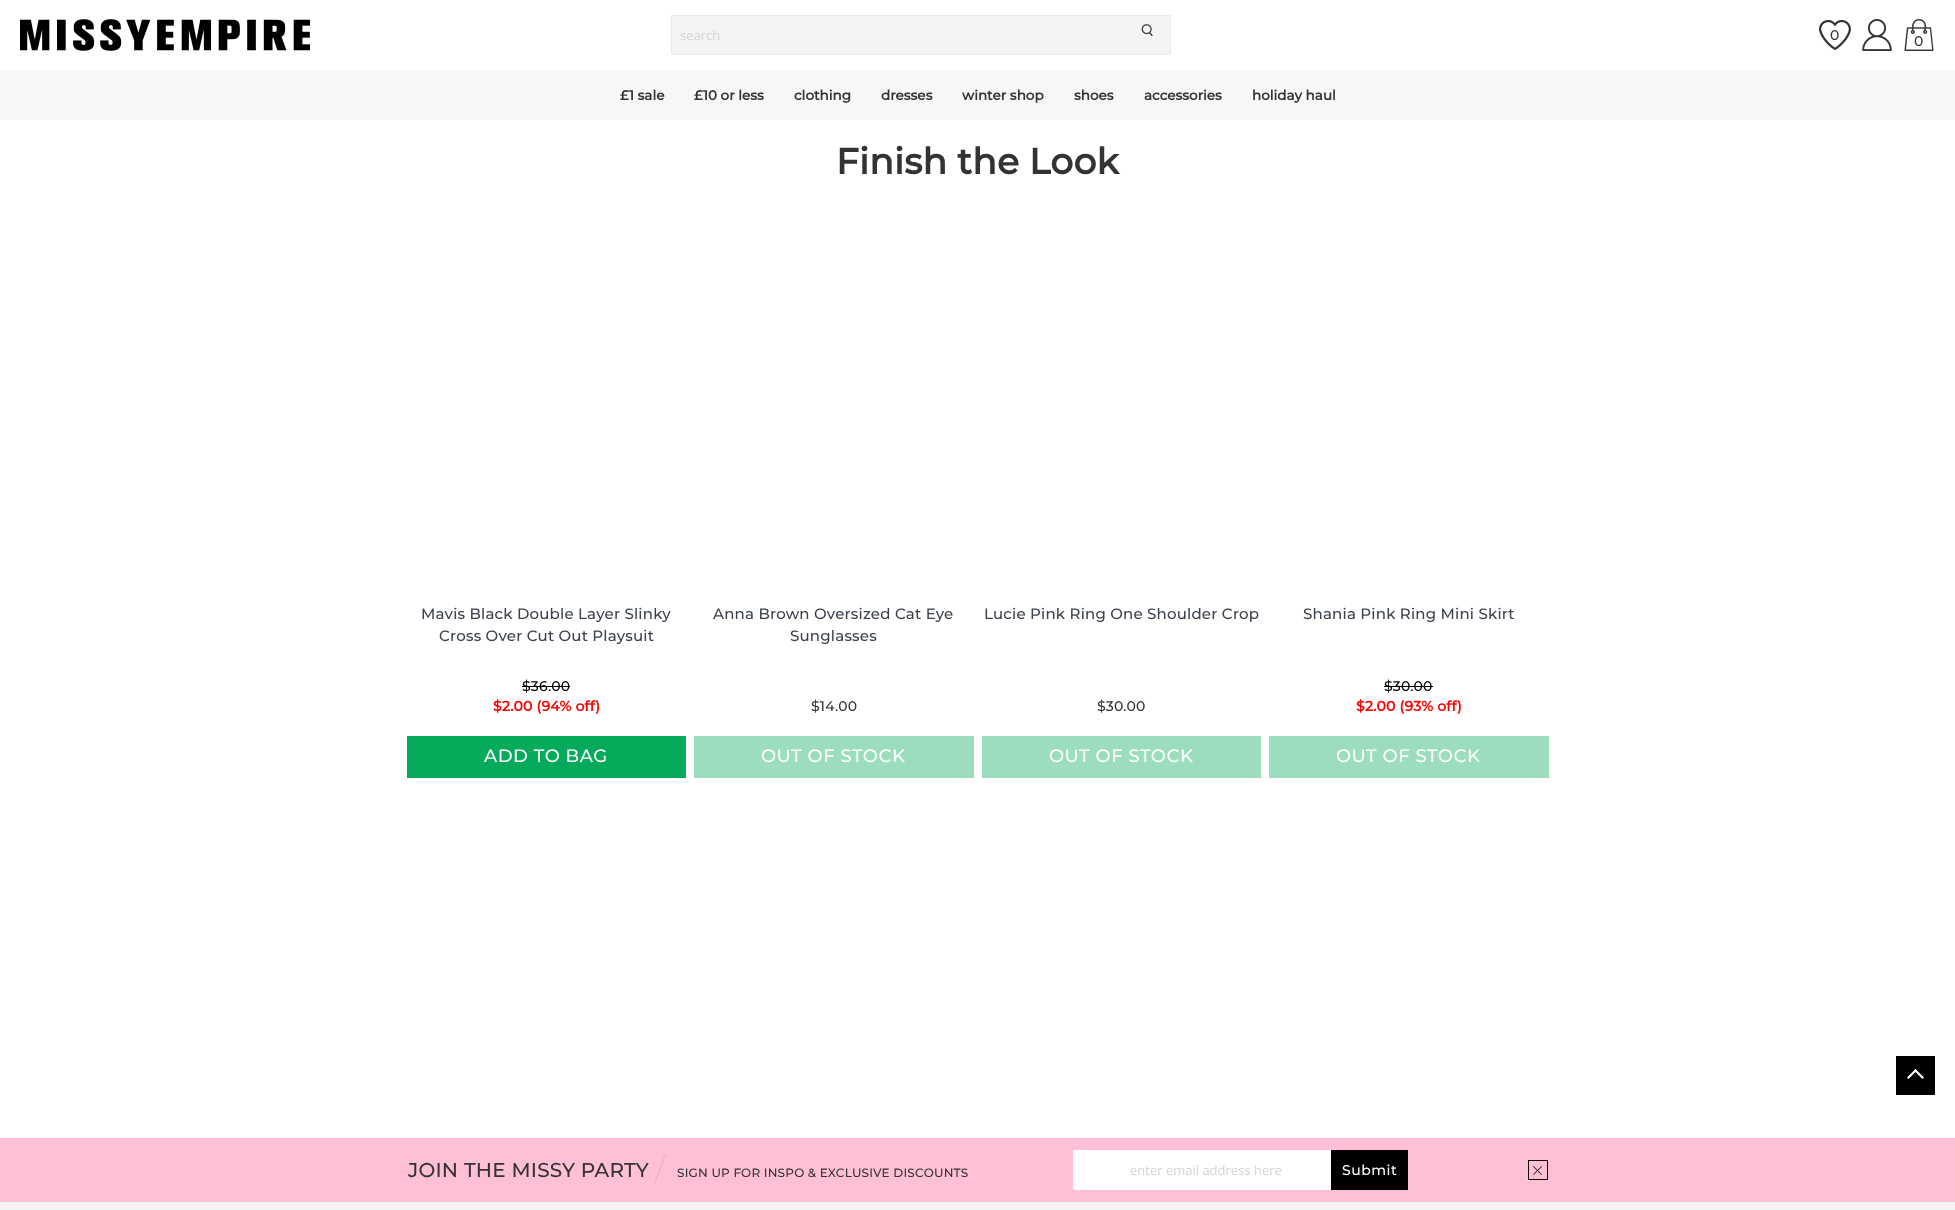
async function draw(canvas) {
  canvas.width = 1955;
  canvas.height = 1210;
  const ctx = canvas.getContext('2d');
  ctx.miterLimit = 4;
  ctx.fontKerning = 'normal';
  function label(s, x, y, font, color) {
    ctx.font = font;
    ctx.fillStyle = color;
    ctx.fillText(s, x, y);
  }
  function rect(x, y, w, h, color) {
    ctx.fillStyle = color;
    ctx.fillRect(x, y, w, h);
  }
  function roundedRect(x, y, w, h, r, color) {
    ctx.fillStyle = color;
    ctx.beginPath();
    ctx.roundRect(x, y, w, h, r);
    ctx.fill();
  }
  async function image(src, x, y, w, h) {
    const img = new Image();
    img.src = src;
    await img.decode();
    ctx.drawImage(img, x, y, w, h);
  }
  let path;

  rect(0, 0, 1955, 1210, '#fff');
  await image('assets/img1.png', 20, 19, 290, 32);
  ctx.fillStyle = '#f5f4f2';
  ctx.beginPath();
  ctx.roundRect(671.5, 15.5, 499, 39, 1.5);
  ctx.fill();
  ctx.strokeStyle = '#e8e8e8';
  ctx.stroke();
  label('search', 680, 40, '13px Open Sans', '#d3d3d3');
  await image('assets/img2.png', 1141, 24, 12, 13);
  await image('assets/img3.png', 1819, 19, 32, 31);
  ctx.letterSpacing = '0.2px';
  label('0', 1830, 40, '100 14px Montserrat', '#333');
  await image('assets/img4.png', 1862, 19, 30, 32);
  await image('assets/img5.png', 1904, 19, 30, 32);
  label('0', 1914, 46, '100 14px Montserrat', '#333');
  rect(0, 70, 1955, 50, '#f7f7f7');
  ctx.letterSpacing = '0px';
  label('£1 sale', 620, 100, 'bold 13.5px Montserrat', '#333');
  label('£10 or less', 694, 100, 'bold 13.5px Montserrat', '#333');
  label('clothing', 794, 100, 'bold 13.5px Montserrat', '#333');
  label('dresses', 881, 100, 'bold 13.5px Montserrat', '#333');
  label('winter shop', 962, 100, 'bold 13.5px Montserrat', '#333');
  label('shoes', 1074, 100, 'bold 13.5px Montserrat', '#333');
  label('accessories', 1144, 100, 'bold 13.5px Montserrat', '#333');
  label('holiday haul', 1252, 100, 'bold 13.5px Montserrat', '#333');
  ctx.letterSpacing = '0.2px';
  label('Finish the Look', 836, 174, 'bold 36px Montserrat', '#333');
  label('Mavis Black Double Layer Slinky', 421, 619, '100 15px Montserrat', '#3c424d');
  label('Cross Over Cut Out Playsuit', 439, 641, '100 15px Montserrat', '#3c424d');
  label('$36.00', 522, 691, '100 14px Montserrat', '#000');
  rect(522, 686, 48, 1, '#000');
  label('$2.00 (94% off)', 493, 711, 'bold 14px Montserrat', '#f00');
  rect(407, 736, 279, 42, '#06aa5b');
  ctx.letterSpacing = '0.5px';
  label('ADD TO BAG', 484, 762, '100 18px Montserrat', '#fff');
  ctx.letterSpacing = '0.2px';
  label('Anna Brown Oversized Cat Eye', 713, 619, '100 15px Montserrat', '#3c424d');
  label('Sunglasses', 790, 641, '100 15px Montserrat', '#3c424d');
  label('$14.00', 811, 711, '100 14px Montserrat', '#333');
  rect(694, 736, 280, 42, '#9bddbd');
  ctx.letterSpacing = '0.5px';
  label('OUT OF STOCK', 761, 762, '100 18px Montserrat', '#fff');
  ctx.letterSpacing = '0.2px';
  label('Lucie Pink Ring One Shoulder Crop', 984, 619, '100 15px Montserrat', '#3c424d');
  label('$30.00', 1097, 711, '100 14px Montserrat', '#333');
  rect(982, 736, 279, 42, '#9bddbd');
  ctx.letterSpacing = '0.5px';
  label('OUT OF STOCK', 1049, 762, '100 18px Montserrat', '#fff');
  ctx.letterSpacing = '0.2px';
  label('Shania Pink Ring Mini Skirt', 1303, 619, '100 15px Montserrat', '#3c424d');
  label('$30.00', 1384, 691, '100 14px Montserrat', '#000');
  rect(1384, 686, 49, 1, '#000');
  label('$2.00 (93% off)', 1356, 711, 'bold 14px Montserrat', '#f00');
  rect(1269, 736, 280, 42, '#9bddbd');
  ctx.letterSpacing = '0.5px';
  label('OUT OF STOCK', 1336, 762, '100 18px Montserrat', '#fff');
  rect(0, 1202, 1955, 8, '#f5f4f2');
  rect(1896, 1056, 39, 39, '#000');
  ctx.fillStyle = '#fff';
  path = new Path2D('M1915.5 1069L1917 1070.5L1908.5 1079L1907 1077.5Z');
  ctx.fill(path);
  path = new Path2D('M1914 1070.5L1915.5 1069L1924 1077.5L1922.5 1079Z');
  ctx.fill(path);
  rect(0, 1138, 1955, 64, '#ffbfd6');
  ctx.letterSpacing = '0.2px';
  label('JOIN THE MISSY PARTY', 408, 1177, '100 20px Montserrat', '#333');
  ctx.fillStyle = '#e5aec2';
  path = new Path2D('M665 1154.5H666L655.5 1183L654.5 1182.5Z');
  ctx.fill(path);
  label('SIGN UP FOR INSPO & EXCLUSIVE DISCOUNTS', 677, 1177, '100 12px Montserrat', '#333');
  roundedRect(1073, 1150, 335, 40, 2, '#fff');
  ctx.letterSpacing = '0px';
  label('enter email address here', 1130, 1175, '13px Open Sans', '#d3d3d3');
  rect(1331, 1150, 77, 40, '#000');
  ctx.letterSpacing = '0.5px';
  label('Submit', 1342, 1175, '100 14px Montserrat', '#fff');
  ctx.strokeStyle = '#000';
  ctx.strokeRect(1528.5, 1160.5, 19, 19);
  ctx.fillStyle = '#000';
  path = new Path2D('M1533.5 1166L1542 1174.5L1541.5 1175L1533 1166.5Z');
  ctx.fill(path);
  path = new Path2D('M1533 1174.5L1541.5 1166L1542 1166.5L1533.5 1175Z');
  ctx.fill(path);
}

draw(document.querySelector('canvas'));
